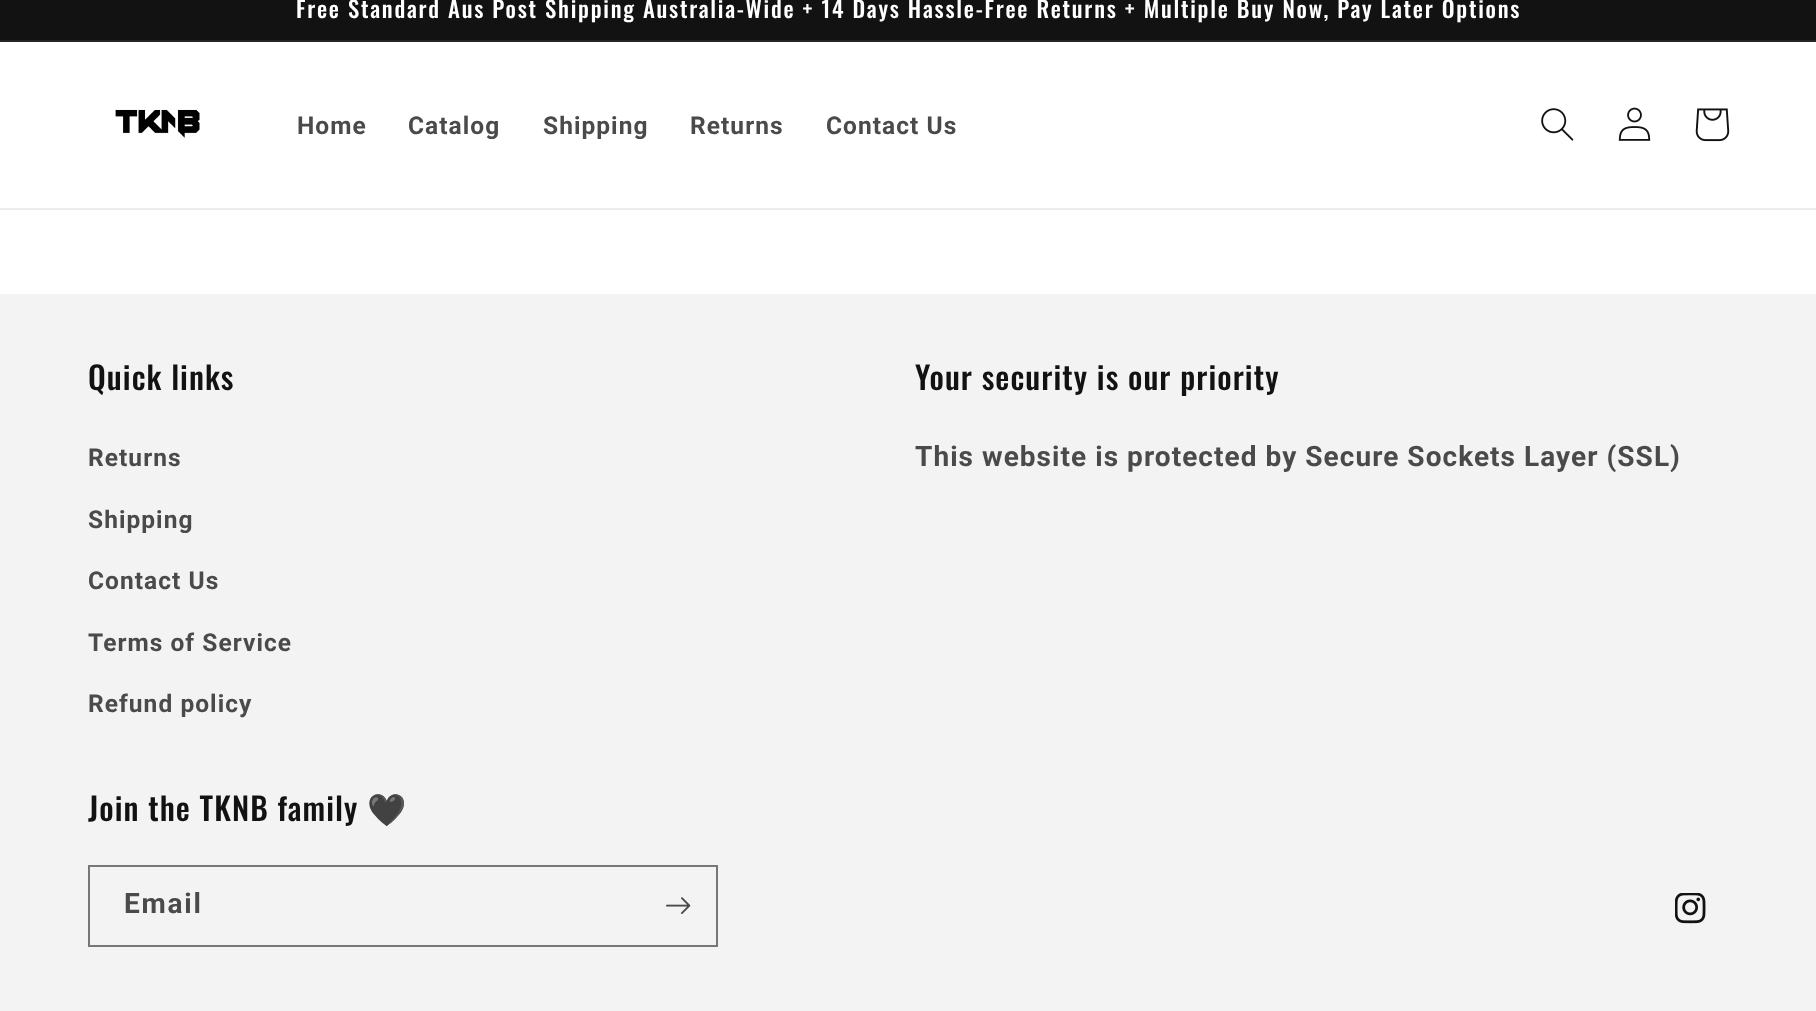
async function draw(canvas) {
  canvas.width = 1816;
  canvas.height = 1011;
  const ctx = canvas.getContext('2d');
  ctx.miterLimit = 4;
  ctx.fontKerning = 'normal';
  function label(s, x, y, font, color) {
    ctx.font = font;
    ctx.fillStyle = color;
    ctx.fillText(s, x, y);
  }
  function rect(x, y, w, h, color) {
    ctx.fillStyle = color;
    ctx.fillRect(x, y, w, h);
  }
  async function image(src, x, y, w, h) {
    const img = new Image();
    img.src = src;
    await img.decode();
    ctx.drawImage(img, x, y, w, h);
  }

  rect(0, 0, 1816, 1011, '#fff');
  rect(0, 0, 1816, 40, '#121212');
  rect(0, 40, 1816, 2, '#252525');
  ctx.letterSpacing = '1.75px';
  label('Free Standard Aus Post Shipping Australia-Wide + 14 Days Hassle-Free Returns + Multiple Buy Now, Pay Later Options', 296, 18, '500 22.75px Oswald', '#fff');
  rect(0, 208, 1816, 2, '#ececec');
  await image('assets/img1.png', 115, 109, 85, 29);
  ctx.letterSpacing = '1.05px';
  label('Home', 297, 134, 'bold 24.5px Roboto', '#4a4a4a');
  label('Catalog', 408, 134, 'bold 24.5px Roboto', '#4a4a4a');
  label('Shipping', 543, 134, 'bold 24.5px Roboto', '#4a4a4a');
  label('Returns', 690, 134, 'bold 24.5px Roboto', '#4a4a4a');
  label('Contact Us', 826, 134, 'bold 24.5px Roboto', '#4a4a4a');
  await image('assets/img2.png', 1541, 108, 33, 33);
  await image('assets/img3.png', 1618, 107, 33, 34);
  await image('assets/img4.png', 1695, 108, 35, 34);
  rect(0, 294, 1816, 717, '#f3f3f3');
  label('Quick links', 88, 390, '500 31.5px Oswald', '#121212');
  label('Returns', 88, 466, 'bold 24.5px Roboto', '#4a4a4a');
  label('Shipping', 88, 528, 'bold 24.5px Roboto', '#4a4a4a');
  label('Contact Us', 88, 589, 'bold 24.5px Roboto', '#4a4a4a');
  label('Terms of Service', 88, 651, 'bold 24.5px Roboto', '#4a4a4a');
  label('Refund policy', 88, 712, 'bold 24.5px Roboto', '#4a4a4a');
  label('Your security is our priority', 915, 390, '500 31.5px Oswald', '#121212');
  label('This website is protected by Secure Sockets Layer (SSL)', 915, 466, 'bold 28px Roboto', '#4a4a4a');
  label('Join the TKNB family', 88, 821, '500 31.5px Oswald', '#121212');
  label('🖤', 367, 821, '31.5px Noto Color Emoji', '#121212');
  ctx.strokeStyle = '#777';
  ctx.lineWidth = 2;
  ctx.strokeRect(89, 866, 628, 80);
  ctx.letterSpacing = '1.75px';
  label('Email', 124, 913, 'bold 28px Roboto', '#4a4a4a');
  await image('assets/img5.png', 666, 897, 25, 17);
  await image('assets/img6.png', 1675, 893, 31, 31);
}

draw(document.querySelector('canvas'));
